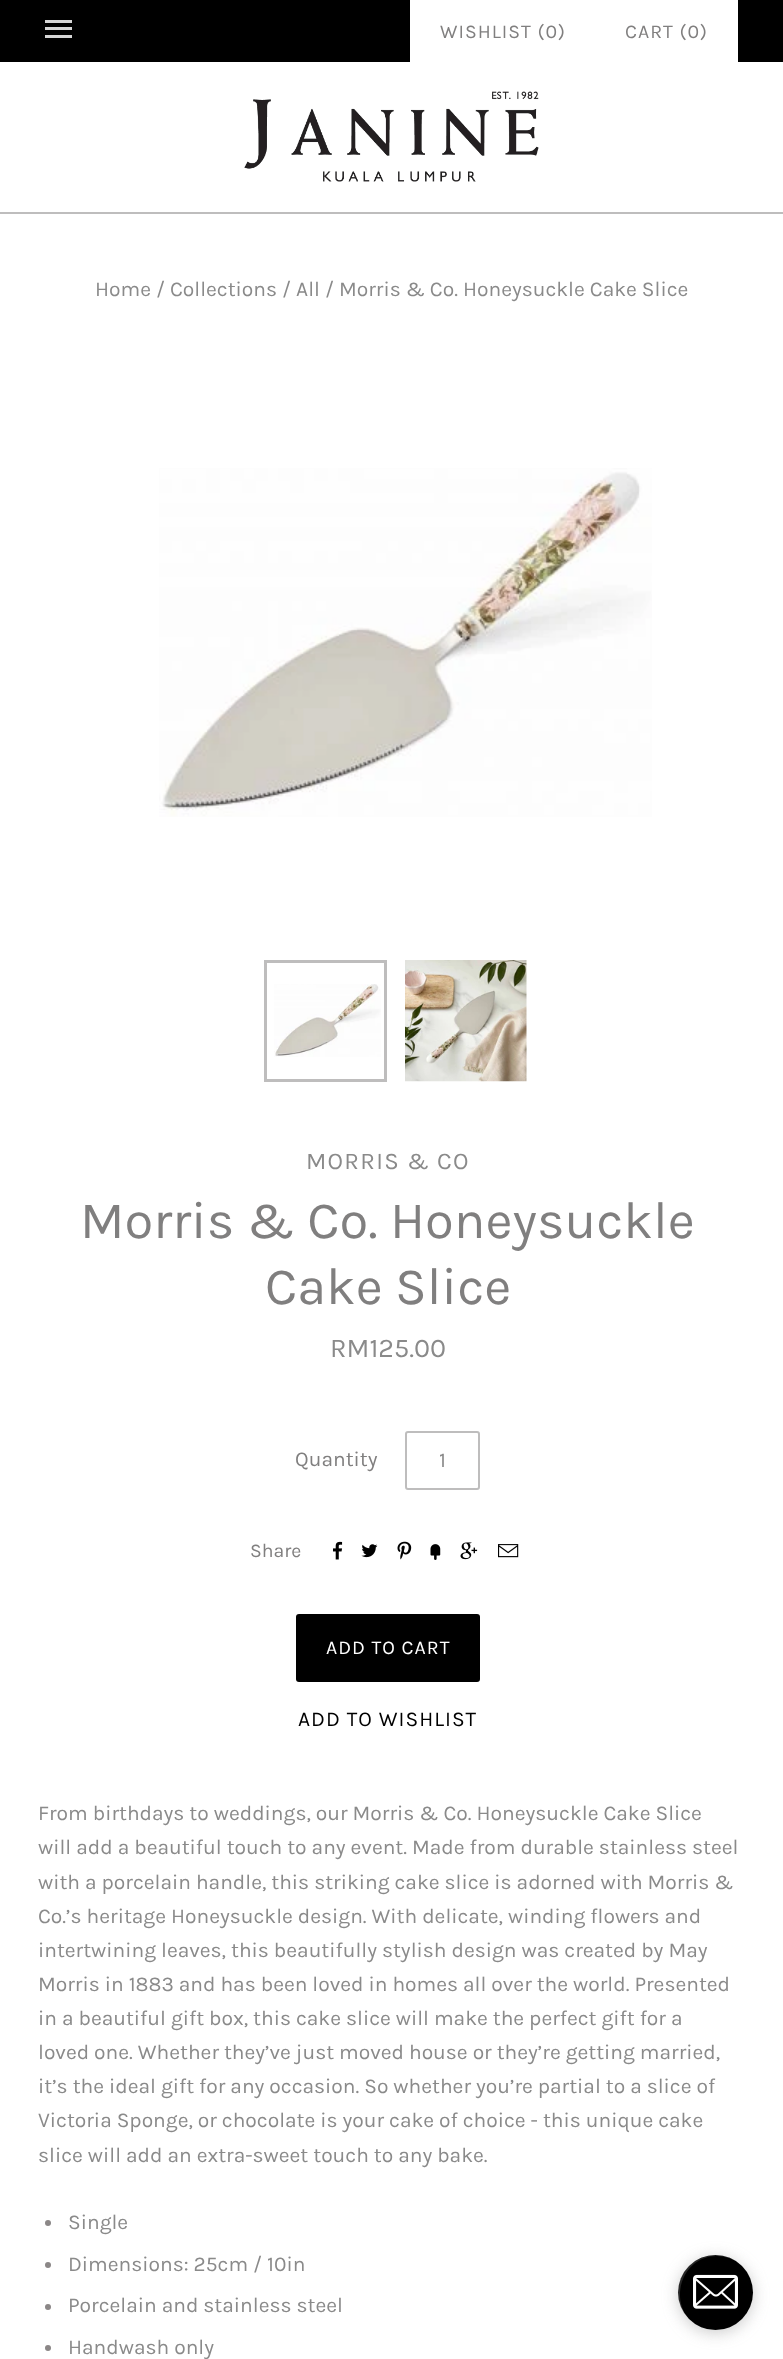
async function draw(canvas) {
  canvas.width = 783;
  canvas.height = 2359;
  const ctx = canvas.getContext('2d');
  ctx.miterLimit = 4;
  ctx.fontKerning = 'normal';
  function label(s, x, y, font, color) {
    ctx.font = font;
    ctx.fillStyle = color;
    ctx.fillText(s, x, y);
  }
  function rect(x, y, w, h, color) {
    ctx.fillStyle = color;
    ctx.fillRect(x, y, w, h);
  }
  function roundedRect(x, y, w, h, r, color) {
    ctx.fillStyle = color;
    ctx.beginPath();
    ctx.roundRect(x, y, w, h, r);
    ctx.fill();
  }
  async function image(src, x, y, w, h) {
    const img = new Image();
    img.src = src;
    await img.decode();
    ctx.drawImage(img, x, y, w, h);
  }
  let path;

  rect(0, 0, 783, 2359, '#fff');
  rect(0, 0, 783, 62, '#000');
  rect(45, 27, 27, 3, '#d6d6d6');
  rect(45, 20, 27, 3, '#d6d6d6');
  rect(45, 35, 27, 3, '#d6d6d6');
  rect(410, 0, 328, 62, '#fff');
  ctx.letterSpacing = '1px';
  label('WISHLIST (0)', 440, 38, '19.5px Karla', '#807f7f');
  label('CART (0)', 625, 38, '19.5px Karla', '#807f7f');
  rect(0, 212, 783, 2, '#bebdbd');
  await image('assets/img1.png', 244, 91, 295, 91);
  ctx.letterSpacing = '0px';
  label('Home / Collections / All / Morris & Co. Honeysuckle Cake Slice', 95, 296, '21px Karla', '#8a8a8a');
  await image('assets/img2.png', 159, 468, 493, 349);
  await image('assets/img3.png', 274, 984, 107, 73);
  ctx.strokeStyle = '#bebdbd';
  ctx.lineWidth = 3;
  ctx.strokeRect(265.5, 961.5, 120, 119);
  await image('assets/img4.png', 405, 960, 122, 122);
  ctx.letterSpacing = '1.25px';
  label('MORRIS & CO', 306, 1169, '24px Karla', '#8a8a8a');
  ctx.letterSpacing = '0px';
  label('Morris & Co. Honeysuckle', 80, 1238, '52.5px Karla', '#807f7f');
  label('Cake Slice', 265, 1304, '52.5px Karla', '#807f7f');
  label('RM125.00', 330, 1357, '27px Karla', '#8a8a8a');
  label('Quantity', 295, 1466, '21px Karla', '#807f7f');
  ctx.beginPath();
  ctx.roundRect(406, 1432, 73, 57, 2);
  ctx.lineWidth = 2;
  ctx.stroke();
  label('1', 439, 1467, '21px Karla', '#8a8a8a');
  label('Share', 250, 1557, '19.5px Karla', '#807f7f');
  await image('assets/img5.png', 333, 1541, 10, 19);
  await image('assets/img6.png', 361, 1544, 17, 14);
  await image('assets/img7.png', 397, 1541, 15, 19);
  await image('assets/img8.png', 430, 1544, 11, 16);
  await image('assets/img9.png', 460, 1542, 18, 18);
  await image('assets/img10.png', 498, 1544, 21, 14);
  roundedRect(296, 1614, 184, 68, 3, '#000');
  ctx.letterSpacing = '1px';
  label('ADD TO CART', 326, 1654, '19.5px Karla', '#fff');
  label('ADD TO WISHLIST', 298, 1726, '21px Karla', '#000');
  ctx.letterSpacing = '0px';
  label('From birthdays to weddings, our Morris & Co. Honeysuckle Cake Slice', 38, 1820, '21px Karla', '#8a8a8a');
  label('will add a beautiful touch to any event. Made from durable stainless steel', 38, 1854, '21px Karla', '#8a8a8a');
  label('with a porcelain handle, this striking cake slice is adorned with Morris &', 38, 1889, '21px Karla', '#8a8a8a');
  label('Co.’s heritage Honeysuckle design. With delicate, winding flowers and', 38, 1923, '21px Karla', '#8a8a8a');
  label('intertwining leaves, this beautifully stylish design was created by May', 38, 1957, '21px Karla', '#8a8a8a');
  label('Morris in 1883 and has been loved in homes all over the world. Presented', 38, 1991, '21px Karla', '#8a8a8a');
  label('in a beautiful gift box, this cake slice will make the perfect gift for a', 38, 2025, '21px Karla', '#8a8a8a');
  label('loved one. Whether they’ve just moved house or they’re getting married,', 38, 2059, '21px Karla', '#8a8a8a');
  label('it’s the ideal gift for any occasion. So whether you’re partial to a slice of', 38, 2093, '21px Karla', '#8a8a8a');
  label('Victoria Sponge, or chocolate is your cake of choice - this unique cake', 38, 2127, '21px Karla', '#8a8a8a');
  label('slice will add an extra-sweet touch to any bake.', 38, 2162, '21px Karla', '#8a8a8a');
  ctx.fillStyle = '#8b8787';
  ctx.beginPath();
  ctx.arc(48, 2223, 3, 0, 2 * Math.PI);
  ctx.fill();
  label('Single', 68, 2229, '21px Karla', '#8a8a8a');
  ctx.fillStyle = '#8b8787';
  ctx.beginPath();
  ctx.arc(48, 2265, 3, 0, 2 * Math.PI);
  ctx.fill();
  label('Dimensions: 25cm / 10in', 68, 2271, '21px Karla', '#8a8a8a');
  ctx.fillStyle = '#8b8787';
  ctx.beginPath();
  ctx.arc(48, 2307, 3, 0, 2 * Math.PI);
  ctx.fill();
  label('Porcelain and stainless steel', 68, 2312, '21px Karla', '#8a8a8a');
  ctx.fillStyle = '#8b8787';
  ctx.beginPath();
  ctx.arc(48, 2348, 3, 0, 2 * Math.PI);
  ctx.fill();
  label('Handwash only', 68, 2354, '21px Karla', '#8a8a8a');
  ctx.fillStyle = '#80808066';
  ctx.filter = 'blur(8px)';
  ctx.beginPath();
  ctx.roundRect(678, 2258, 75, 75, 37.5);
  ctx.fill();
  ctx.filter = 'none';
  ctx.fillStyle = '#000';
  ctx.beginPath();
  ctx.arc(715.5, 2292.5, 37.5, 0, 2 * Math.PI);
  ctx.fill();
  ctx.fillStyle = '#ffffff26';
  path = new Path2D('M717 2256C725 2256 733 2259 739 2263C722 2250 696 2254 684 2272C672 2289 678 2314 696 2325C667 2305 680 2256 717 2256Z');
  ctx.fill(path);
  await image('assets/img11.png', 693, 2274, 45, 35);
}

draw(document.querySelector('canvas'));
